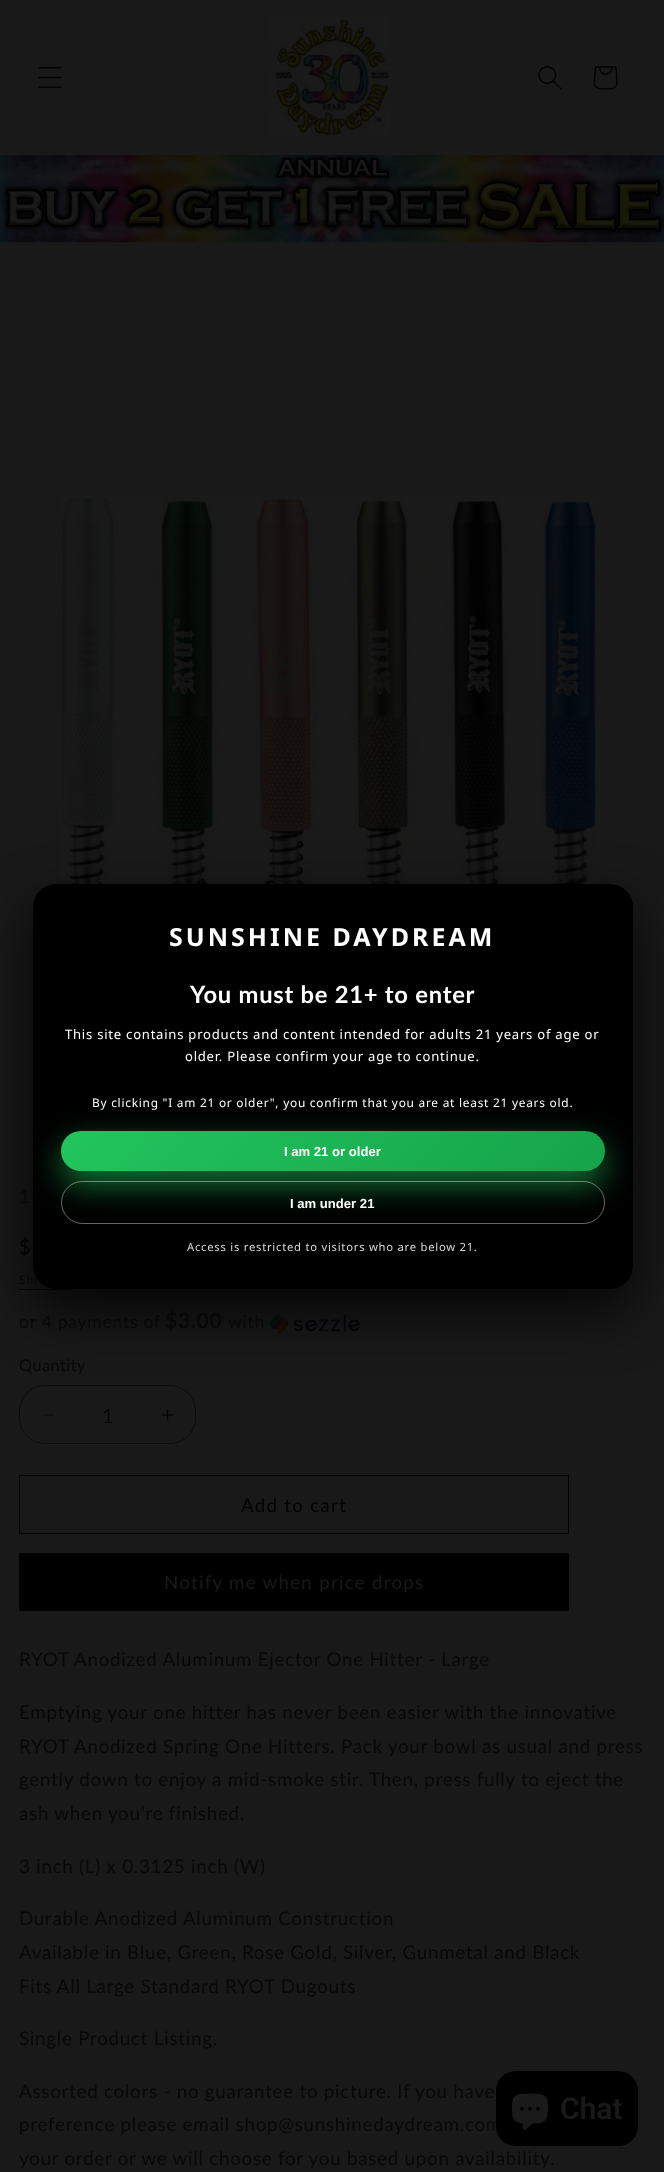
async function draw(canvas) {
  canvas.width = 664;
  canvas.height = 2172;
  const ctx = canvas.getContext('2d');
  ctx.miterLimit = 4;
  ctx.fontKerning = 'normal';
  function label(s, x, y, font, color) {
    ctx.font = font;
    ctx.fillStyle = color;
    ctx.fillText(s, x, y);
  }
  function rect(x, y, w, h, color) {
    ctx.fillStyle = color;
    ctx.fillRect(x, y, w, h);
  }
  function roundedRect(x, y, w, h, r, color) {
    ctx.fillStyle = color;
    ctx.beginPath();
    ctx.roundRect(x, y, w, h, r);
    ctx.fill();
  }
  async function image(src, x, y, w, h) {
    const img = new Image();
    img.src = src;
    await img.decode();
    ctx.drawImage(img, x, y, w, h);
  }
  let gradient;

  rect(0, 0, 664, 2172, '#191919');
  await image('assets/img1.png', 38, 67, 24, 21);
  await image('assets/img2.png', 270, 15, 120, 121);
  await image('assets/img3.png', 538, 66, 24, 24);
  await image('assets/img4.png', 593, 66, 25, 24);
  await image('assets/img5.png', 0, 155, 664, 88);
  await image('assets/img6.png', 60, 496, 540, 388);
  rect(19, 1289, 54, 1, '#050505');
  await image('assets/img7.png', 270, 1313, 90, 22);
  await image('assets/img8.png', 43, 1414, 12, 2);
  await image('assets/img9.png', 162, 1409, 12, 12);
  ctx.beginPath();
  ctx.roundRect(19.5, 1385.5, 176, 58, 25.5);
  ctx.strokeStyle = '#0c0c0c';
  ctx.stroke();
  ctx.fillStyle = '#000000cc';
  ctx.filter = 'blur(28px)';
  ctx.beginPath();
  ctx.roundRect(33, 906, 600, 405, 23);
  ctx.fill();
  ctx.filter = 'none';
  ctx.letterSpacing = '1px';
  label('Shi', 19, 1284, '12px Lato', '#080808');
  roundedRect(33, 884, 600, 405, 23, '#000');
  ctx.letterSpacing = '3px';
  label('SUNSHINE DAYDREAM', 169, 946, 'bold 25px Noto Sans', '#fff');
  ctx.letterSpacing = '0.75px';
  label('You must be 21+ to enter', 190, 1003, 'bold 23.75px Lato', '#fff');
  label('This site contains products and content intended for adults 21 years of age or', 65, 1039, '13.1px Noto Sans', '#fff');
  label('older. Please confirm your age to continue.', 185, 1061, '13.1px Noto Sans', '#fff');
  label('By clicking "I am 21 or older", you confirm that you are at least 21 years old.', 92, 1107, '11.9px Noto Sans', '#fff');
  ctx.fillStyle = '#22c55e99';
  ctx.filter = 'blur(16px)';
  ctx.beginPath();
  ctx.roundRect(61, 1144, 544, 40, 20);
  ctx.fill();
  ctx.filter = 'none';
  gradient = ctx.createLinearGradient(187, 1005, 479, 1297);
  gradient.addColorStop(0, '#22c55e');
  gradient.addColorStop(1, '#16a34a');
  ctx.fillStyle = gradient;
  ctx.beginPath();
  ctx.roundRect(61, 1131, 544, 40, 20);
  ctx.fill();
  ctx.letterSpacing = '0px';
  label('I am 21 or older', 284, 1156, 'bold 13.1px Liberation Sans', '#fff');
  ctx.beginPath();
  ctx.roundRect(61.5, 1181.5, 543, 42, 21);
  ctx.strokeStyle = '#ffffff66';
  ctx.stroke();
  label('I am under 21', 290, 1208, 'bold 13.1px Liberation Sans', '#fff');
  ctx.letterSpacing = '0.75px';
  label('Access is restricted to visitors who are below 21.', 187, 1251, '11.25px Noto Sans', '#d9d9d9');
  label('1', 19, 1203, '18.75px Lato', '#080808');
  ctx.letterSpacing = '2px';
  label('$', 19, 1254, '20px Lato', '#020202');
  ctx.letterSpacing = '0.75px';
  label('or 4 payments of', 19, 1328, '17.5px Lato', '#080808');
  label('$3.00', 165, 1328, 'bold 21px Lato', '#080808');
  label('with', 228, 1328, '17.5px Lato', '#080808');
  ctx.letterSpacing = '0.5px';
  label('Quantity', 19, 1371, '16.25px Lato', '#080808');
  ctx.letterSpacing = '0px';
  label('1', 102, 1423, '20px Lato', '#080808');
  ctx.strokeStyle = '#020202';
  ctx.strokeRect(19.5, 1475.5, 549, 58);
  ctx.letterSpacing = '1.25px';
  label('Add to cart', 241, 1512, '18.75px Lato', '#020202');
  rect(20, 1554, 548, 56, '#000');
  ctx.strokeRect(19.5, 1553.5, 549, 57);
  label('Notify me when price drops', 164, 1589, '18.75px Lato', '#191919');
  ctx.letterSpacing = '0.75px';
  label('RYOT Anodized Aluminum Ejector One Hitter - Large', 19, 1666, '18.75px Lato', '#080808');
  label('Emptying your one hitter has never been easier with the innovative', 19, 1719, '18.75px Lato', '#080808');
  label('RYOT Anodized Spring One Hitters. Pack your bowl as usual and press', 19, 1753, '18.75px Lato', '#080808');
  label('gently down to enjoy a mid-smoke stir. Then, press fully to eject the', 19, 1786, '18.75px Lato', '#080808');
  label('ash when you’re finished.', 19, 1820, '18.75px Lato', '#080808');
  label('3 inch (L) x 0.3125 inch (W)', 19, 1873, '18.75px Lato', '#080808');
  label('Durable Anodized Aluminum Construction', 19, 1925, '18.75px Lato', '#080808');
  label('Available in Blue, Green, Rose Gold, Silver, Gunmetal and Black', 19, 1959, '18.75px Lato', '#080808');
  label('Fits All Large Standard RYOT Dugouts', 19, 1993, '18.75px Lato', '#080808');
  label('Single Product Listing.', 19, 2045, '18.75px Lato', '#080808');
  label('Assorted colors - no guarantee to picture. If you have', 19, 2098, '18.75px Lato', '#080808');
  label('preference please email shop@sunshinedaydream.com', 19, 2131, '18.75px Lato', '#080808');
  label('your order or we will choose for you based upon availability.', 19, 2165, '18.75px Lato', '#080808');
  roundedRect(496, 2071, 142, 75, 20, '#000');
  await image('assets/img10.png', 512, 2093, 36, 37);
  ctx.letterSpacing = '0px';
  label('Chat', 560, 2119, '600 30px Roboto', '#191919');
}

draw(document.querySelector('canvas'));
